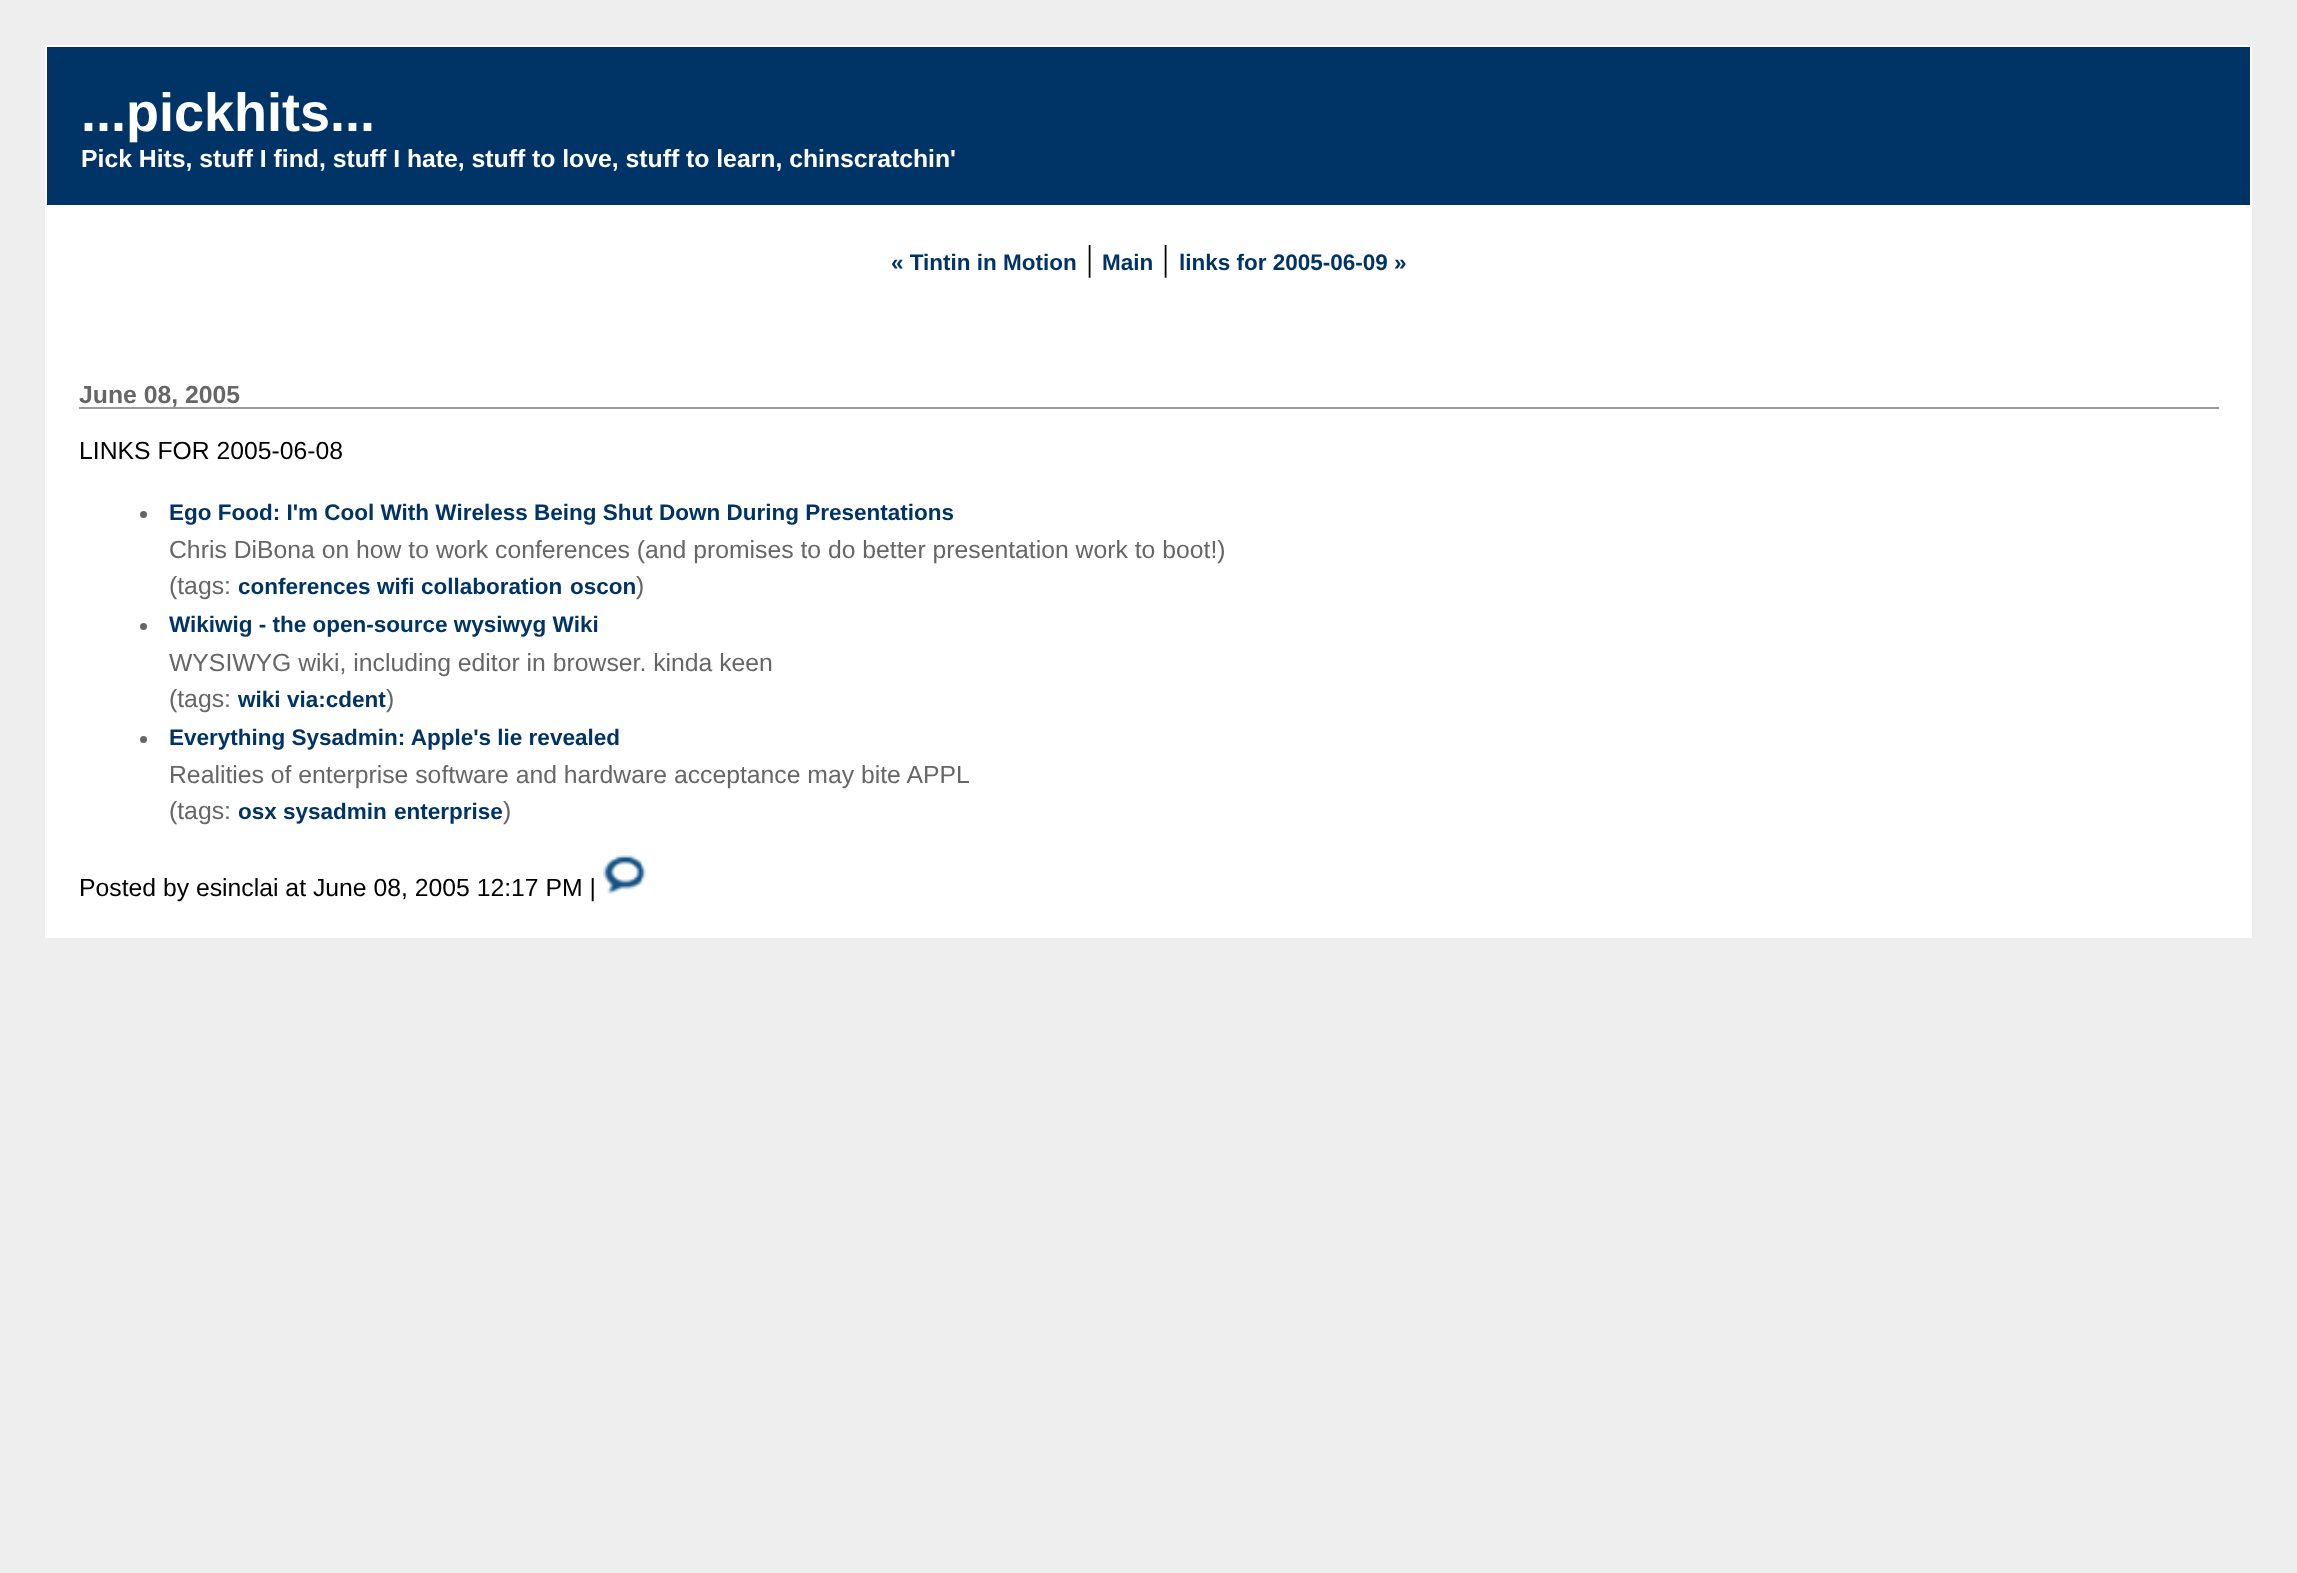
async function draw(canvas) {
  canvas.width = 2297;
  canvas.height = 1573;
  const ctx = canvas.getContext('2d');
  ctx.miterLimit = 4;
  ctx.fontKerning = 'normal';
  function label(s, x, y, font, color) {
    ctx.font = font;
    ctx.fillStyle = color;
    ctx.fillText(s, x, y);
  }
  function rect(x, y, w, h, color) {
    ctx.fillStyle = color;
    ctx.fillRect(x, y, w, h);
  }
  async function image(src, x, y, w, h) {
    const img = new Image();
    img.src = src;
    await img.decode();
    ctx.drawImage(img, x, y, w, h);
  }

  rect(0, 0, 2297, 1573, '#eee');
  rect(47, 47, 2203, 158, '#036');
  rect(45, 45, 2207, 2, '#fff');
  rect(2250, 45, 2, 160, '#fff');
  rect(45, 45, 2, 160, '#fff');
  label('...pickhits...', 81, 131, 'bold 54px Liberation Sans', '#fff');
  label('Pick Hits, stuff I find, stuff I hate, stuff to love, stuff to learn, chinscratchin\'', 81, 167, 'bold 24.75px Liberation Sans', '#fff');
  rect(45, 205, 2207, 733, '#fff');
  label('« Tintin in Motion', 891, 270, 'bold 22.5px Liberation Sans', '#036');
  label('|', 1086, 270, '36px Liberation Serif', '#000');
  label('Main', 1102, 270, 'bold 22.5px Liberation Sans', '#036');
  label('|', 1162, 270, '36px Liberation Serif', '#000');
  label('links for 2005-06-09 »', 1179, 270, 'bold 22.5px Liberation Sans', '#036');
  rect(79, 407, 2140, 2, '#999');
  label('June 08, 2005', 79, 403, 'bold 24.75px Liberation Sans', '#666');
  label('LINKS FOR 2005-06-08', 79, 459, '24.75px Liberation Sans', '#000');
  ctx.fillStyle = '#666';
  ctx.beginPath();
  ctx.arc(143.5, 514.5, 3.5, 0, 2 * Math.PI);
  ctx.fill();
  label('Ego Food: I\'m Cool With Wireless Being Shut Down During Presentations', 169, 520, 'bold 22.5px Liberation Sans', '#036');
  label('Chris DiBona on how to work conferences (and promises to do better presentation work to boot!)', 169, 558, '24.75px Liberation Sans', '#666');
  label('(tags:', 169, 594, '24.75px Liberation Sans', '#666');
  label('conferences', 238, 594, 'bold 22.5px Liberation Sans', '#036');
  label('wifi', 377, 594, 'bold 22.5px Liberation Sans', '#036');
  label('collaboration', 421, 594, 'bold 22.5px Liberation Sans', '#036');
  label('oscon', 570, 594, 'bold 22.5px Liberation Sans', '#036');
  label(')', 636, 594, '24.75px Liberation Sans', '#666');
  ctx.beginPath();
  ctx.arc(143.5, 626.5, 3.5, 0, 2 * Math.PI);
  ctx.fill();
  label('Wikiwig - the open-source wysiwyg Wiki', 169, 632, 'bold 22.5px Liberation Sans', '#036');
  label('WYSIWYG wiki, including editor in browser. kinda keen', 169, 671, '24.75px Liberation Sans', '#666');
  label('(tags:', 169, 707, '24.75px Liberation Sans', '#666');
  label('wiki', 238, 707, 'bold 22.5px Liberation Sans', '#036');
  label('via:cdent', 287, 707, 'bold 22.5px Liberation Sans', '#036');
  label(')', 386, 707, '24.75px Liberation Sans', '#666');
  ctx.beginPath();
  ctx.arc(143.5, 739.5, 3.5, 0, 2 * Math.PI);
  ctx.fill();
  label('Everything Sysadmin: Apple\'s lie revealed', 169, 745, 'bold 22.5px Liberation Sans', '#036');
  label('Realities of enterprise software and hardware acceptance may bite APPL', 169, 783, '24.75px Liberation Sans', '#666');
  label('(tags:', 169, 819, '24.75px Liberation Sans', '#666');
  label('osx', 238, 819, 'bold 22.5px Liberation Sans', '#036');
  label('sysadmin', 283, 819, 'bold 22.5px Liberation Sans', '#036');
  label('enterprise', 394, 819, 'bold 22.5px Liberation Sans', '#036');
  label(')', 503, 819, '24.75px Liberation Sans', '#666');
  label('Posted by esinclai at June 08, 2005 12:17 PM |', 79, 896, '24.75px Liberation Sans', '#000');
  await image('assets/img1.png', 603, 855, 43, 39);
}

draw(document.querySelector('canvas'));
